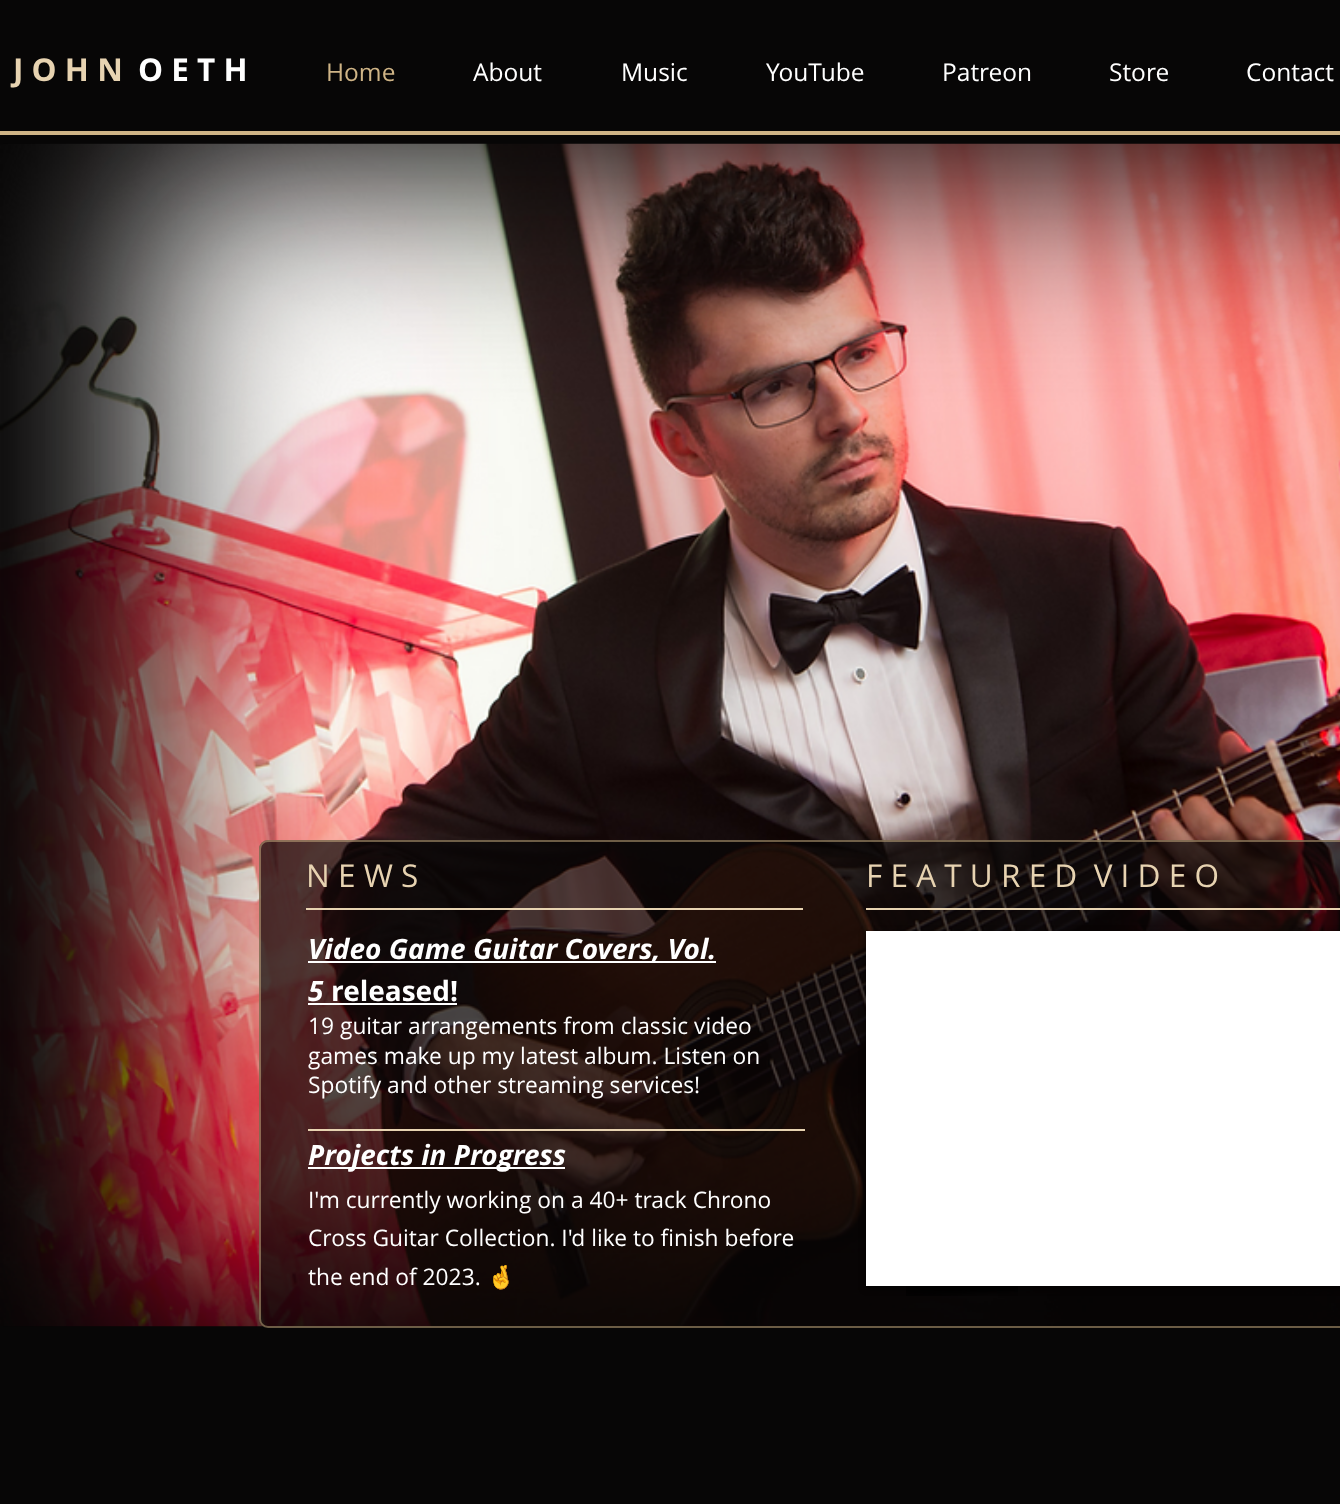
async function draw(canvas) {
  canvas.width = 1340;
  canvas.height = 1504;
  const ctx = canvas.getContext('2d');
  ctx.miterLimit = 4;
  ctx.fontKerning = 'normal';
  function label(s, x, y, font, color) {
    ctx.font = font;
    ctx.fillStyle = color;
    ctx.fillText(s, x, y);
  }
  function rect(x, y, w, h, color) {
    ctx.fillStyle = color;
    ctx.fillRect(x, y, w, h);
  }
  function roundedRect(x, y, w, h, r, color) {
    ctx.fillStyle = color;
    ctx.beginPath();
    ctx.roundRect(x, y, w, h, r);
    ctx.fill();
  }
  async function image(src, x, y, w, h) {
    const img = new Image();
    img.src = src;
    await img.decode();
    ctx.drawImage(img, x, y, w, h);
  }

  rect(0, 0, 1340, 1504, '#070606');
  label('J O H N', 13, 81, 'bold 31.5px Open Sans', '#e7d3b1');
  label('O E T H', 138, 81, 'bold 31.5px Open Sans', '#fff');
  label('Home', 326, 81, '24.5px Open Sans', '#cfb486');
  label('About', 473, 81, '24.5px Open Sans', '#fff');
  label('Music', 621, 81, '24.5px Open Sans', '#fff');
  label('YouTube', 766, 81, '24.5px Open Sans', '#fff');
  label('Patreon', 942, 81, '24.5px Open Sans', '#fff');
  label('Store', 1109, 81, '24.5px Open Sans', '#fff');
  label('Contact', 1246, 81, '24.5px Open Sans', '#fff');
  rect(0, 131, 1340, 4, '#cfb486');
  await image('assets/img1.png', 0, 143, 1340, 1184);
  roundedRect(259, 840, 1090, 488, 9, '#070606b3');
  ctx.beginPath();
  ctx.roundRect(260, 841, 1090, 486, 8);
  ctx.strokeStyle = '#cfb48680';
  ctx.lineWidth = 2;
  ctx.stroke();
  label('N E W S', 306, 887, '31.5px Open Sans', '#e7d3b1');
  label('F E A T U R E D  V I D E O', 866, 887, '31.5px Open Sans', '#e7d3b1');
  rect(306, 908, 497, 2, '#e7d3b1');
  rect(866, 908, 474, 2, '#e7d3b1');
  rect(308, 961, 408, 2, '#fff');
  label('Video Game Guitar Covers, Vol.', 308, 959, 'italic bold 28px Open Sans', '#fff');
  label('5', 308, 1001, 'italic bold 28px Open Sans', '#fff');
  rect(308, 1003, 149, 2, '#fff');
  label('released!', 331, 1001, 'bold 28px Open Sans', '#fff');
  label('19 guitar arrangements from classic video', 308, 1034, '22.75px Open Sans', '#fff');
  label('games mak', 308, 1064, '22.75px Open Sans', '#fff');
  label('e up my latest album. Listen on', 429, 1064, '22.75px Open Sans', '#fff');
  label('Spotify and other streaming services!', 308, 1093, '22.75px Open Sans', '#fff');
  rect(308, 1167, 257, 2, '#fff');
  label('Projects in Progress', 308, 1165, 'italic bold 28px Open Sans', '#fff');
  label('I\'m currently working on a 40+ track Chrono', 308, 1208, '22.75px Open Sans', '#fff');
  label('Cross Guitar Collection. I\'d like to finish before', 308, 1246, '22.75px Open Sans', '#fff');
  label('the end of 2023.', 308, 1285, '22.75px Open Sans', '#fff');
  label('🤞', 487, 1285, '22.75px Noto Color Emoji', '#fff');
  ctx.fillStyle = '#00000099';
  ctx.filter = 'blur(3.5px)';
  ctx.beginPath();
  ctx.rect(866, 933, 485, 355);
  ctx.fill();
  ctx.filter = 'none';
  rect(866, 931, 474, 355, '#fff');
  await image('assets/img2.png', 906, 1286, 112, 10);
  rect(308, 1129, 497, 2, '#e7d3b1');
}

draw(document.querySelector('canvas'));
